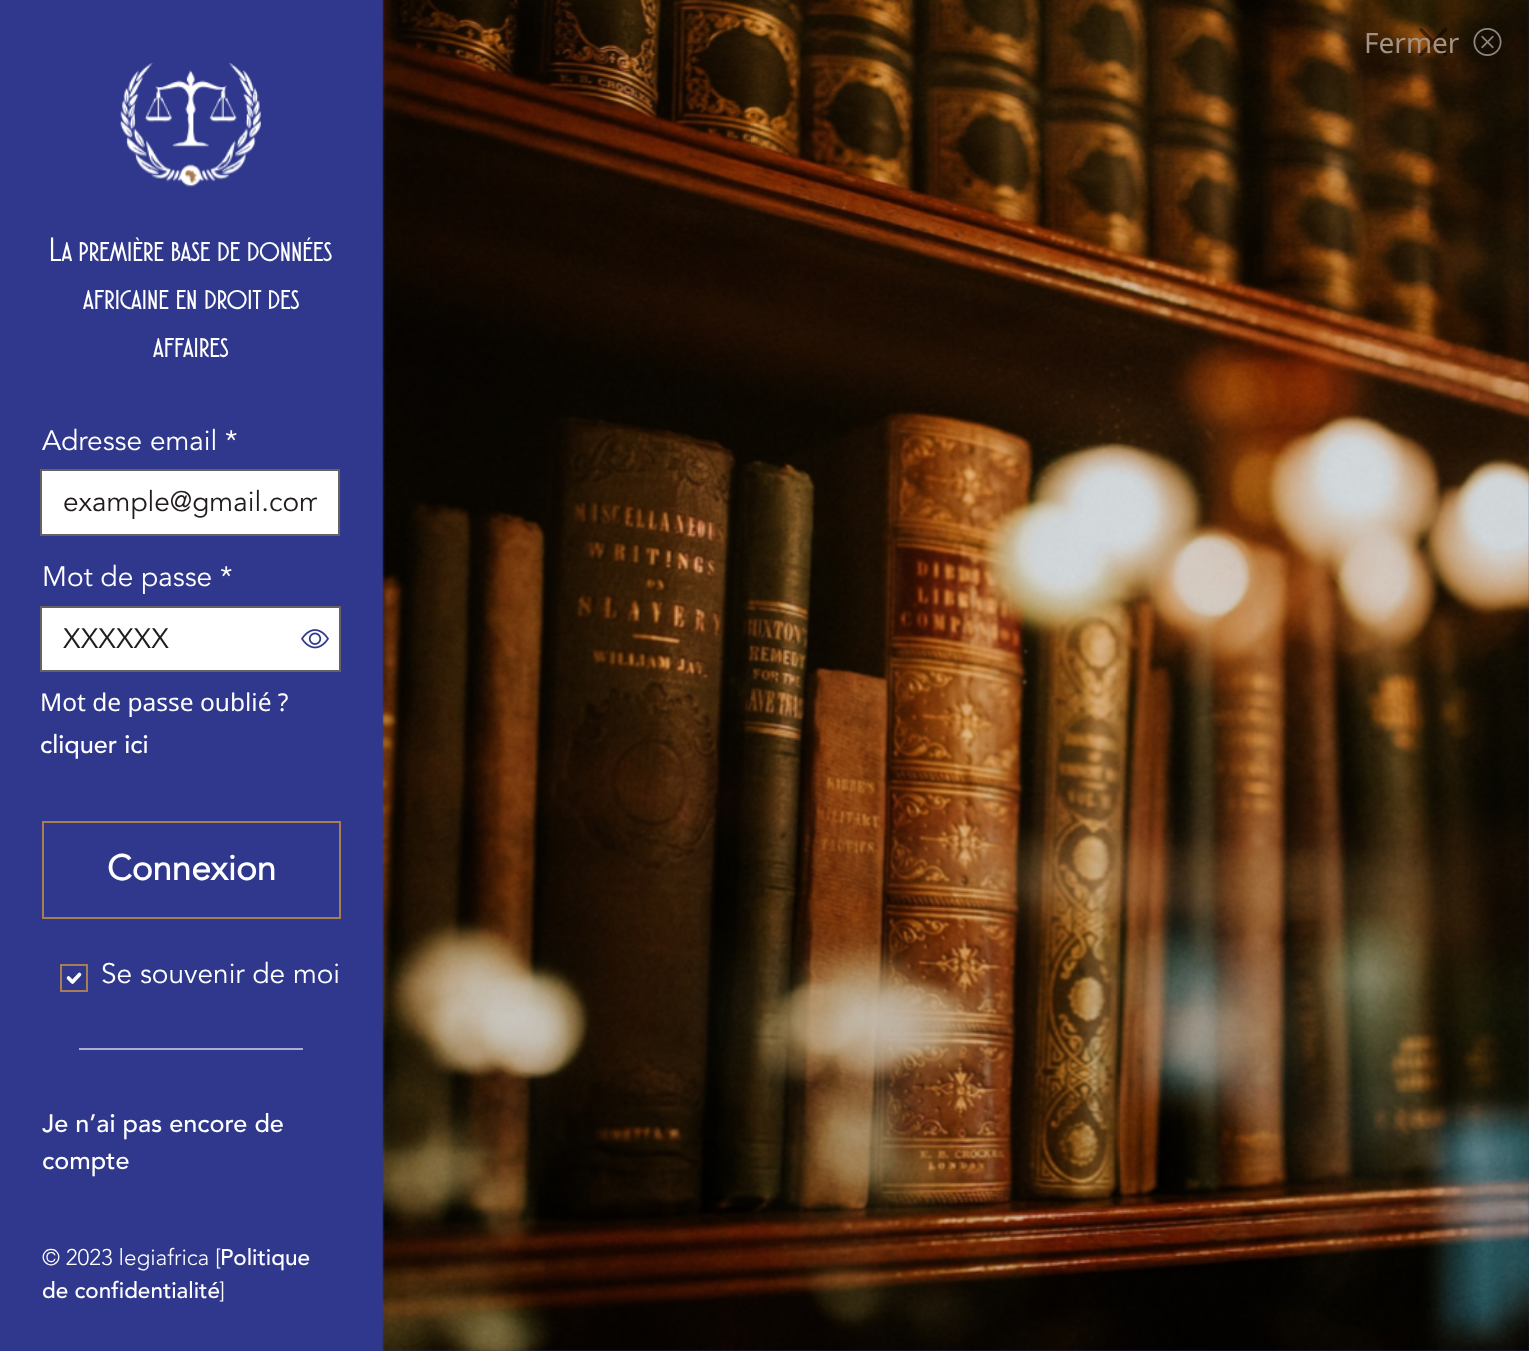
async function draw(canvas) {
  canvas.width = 1529;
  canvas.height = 1351;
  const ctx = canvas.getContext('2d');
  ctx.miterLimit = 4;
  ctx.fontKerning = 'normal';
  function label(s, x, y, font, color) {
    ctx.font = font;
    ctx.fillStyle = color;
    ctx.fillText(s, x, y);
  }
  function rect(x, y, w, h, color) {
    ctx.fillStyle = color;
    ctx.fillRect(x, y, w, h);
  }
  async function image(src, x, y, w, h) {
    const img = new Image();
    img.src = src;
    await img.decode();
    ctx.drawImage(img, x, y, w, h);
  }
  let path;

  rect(0, 0, 1529, 1351, '#2f388c');
  await image('assets/img1.png', 382, 0, 1147, 1351);
  await image('assets/img2.png', 1419, 28, 28, 28);
  label('Fermer', 1364, 53, '28px Noto Sans', '#a39283');
  await image('assets/img3.png', 1473, 28, 29, 28);
  await image('assets/img4.png', 120, 63, 141, 124);
  label('La première base de données', 49, 261, '33.5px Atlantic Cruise', '#fff');
  label('africaine en droit des', 83, 309, '33.5px Atlantic Cruise', '#fff');
  label('affaires', 153, 357, '33.5px Atlantic Cruise', '#fff');
  label('Adresse email *', 42, 450, '28px Avenir', '#fff');
  ctx.beginPath();
  ctx.rect(41, 470, 298, 65);
  ctx.fill();
  ctx.strokeStyle = '#656263';
  ctx.lineWidth = 2;
  ctx.stroke();
  ctx.save();
  ctx.beginPath();
  ctx.rect(63, 483, 254, 39);
  ctx.clip();
  label('example@gmail.com', 63, 511, '28px Avenir', '#201c1d');
  ctx.restore();
  label('Mot de passe *', 42, 586, '28px Avenir', '#fff');
  ctx.beginPath();
  ctx.rect(41, 607, 299, 64);
  ctx.fill();
  ctx.stroke();
  label('XXXXXX', 63, 648, '28px Avenir', '#201c1d');
  await image('assets/img5.png', 301, 629, 28, 20);
  label('Mot de passe oublié ?', 40, 711, '24.5px Noto Sans', '#fff');
  label('cliquer ici', 40, 753, '500 25.25px Avenir', '#fff');
  ctx.strokeStyle = '#a77d53';
  ctx.strokeRect(43, 822, 297, 96);
  label('Connexion', 107, 880, 'bold 35px Avenir', '#fff');
  path = new Path2D('M68.5 978L72.5 982L79.5 974.5');
  ctx.strokeStyle = '#fff';
  ctx.lineWidth = 3.7;
  ctx.lineCap = 'round';
  ctx.lineJoin = 'round';
  ctx.stroke(path);
  ctx.strokeStyle = '#a77d53';
  ctx.lineWidth = 2;
  ctx.lineJoin = 'miter';
  ctx.strokeRect(61, 965, 26, 26);
  label('Se souvenir de moi', 101, 983, '28px Avenir', '#fff');
  rect(79, 1048, 224, 2, '#acafd1');
  label('Je n’ai pas encore de', 42, 1132, '500 25.25px Avenir', '#fff');
  label('compte', 42, 1169, '500 25.25px Avenir', '#fff');
  label('© 2023 legiafrica [', 42, 1265, '300 22.5px Avenir', '#fff');
  label('Politique', 220, 1265, '500 22.5px Avenir', '#fff');
  label('de confidentialité', 42, 1298, '500 22.5px Avenir', '#fff');
  label(']', 219, 1298, '300 22.5px Avenir', '#fff');
}

draw(document.querySelector('canvas'));
